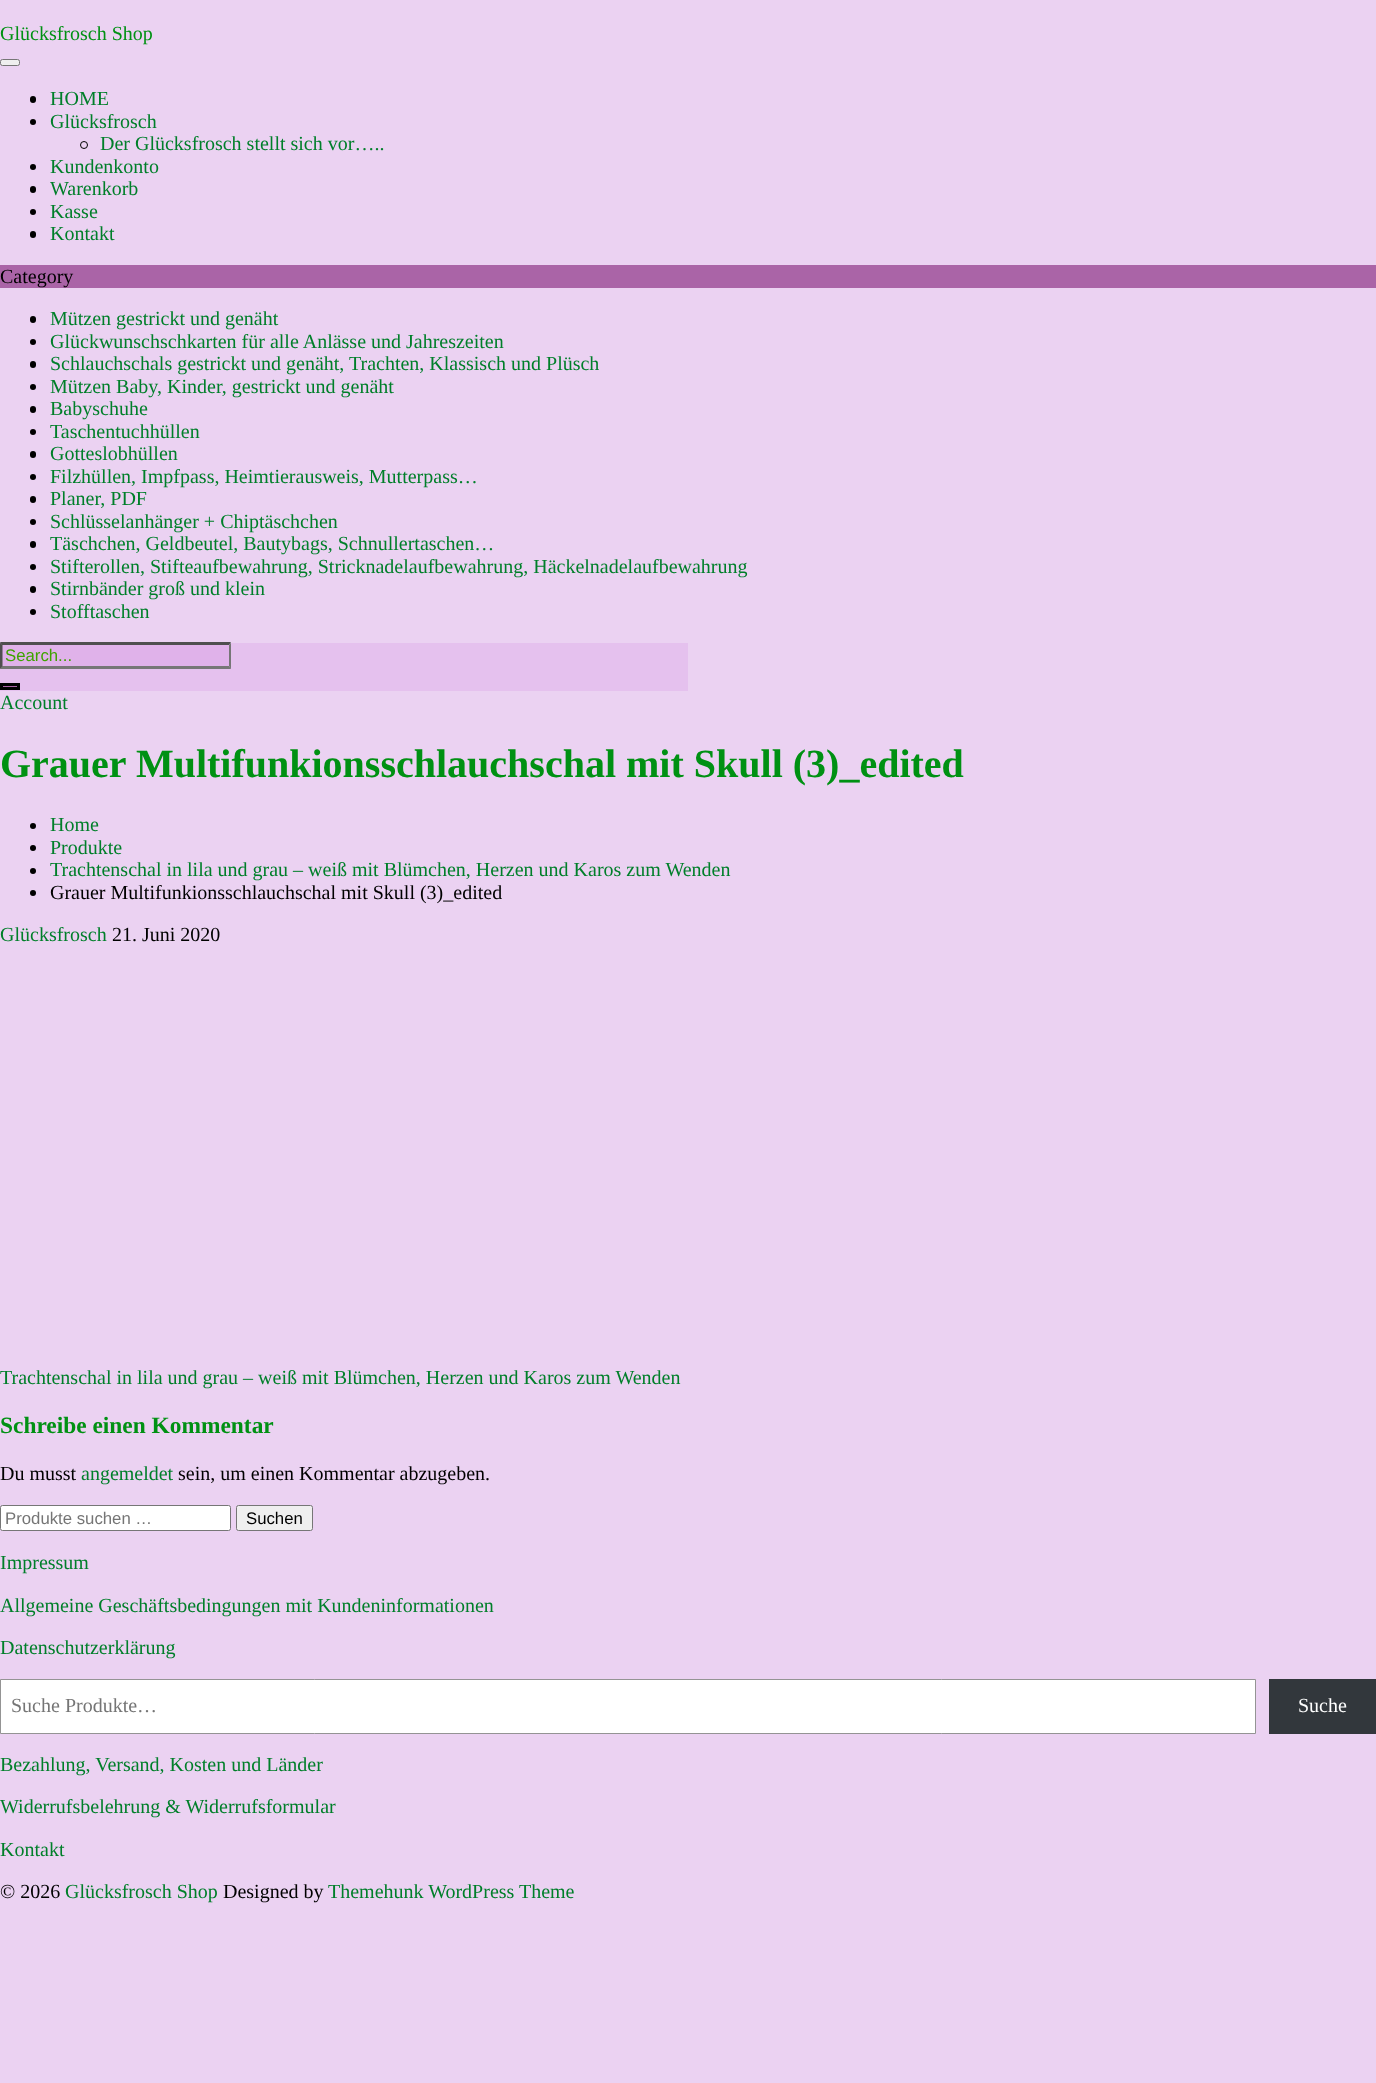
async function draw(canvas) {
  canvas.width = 1376;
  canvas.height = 2083;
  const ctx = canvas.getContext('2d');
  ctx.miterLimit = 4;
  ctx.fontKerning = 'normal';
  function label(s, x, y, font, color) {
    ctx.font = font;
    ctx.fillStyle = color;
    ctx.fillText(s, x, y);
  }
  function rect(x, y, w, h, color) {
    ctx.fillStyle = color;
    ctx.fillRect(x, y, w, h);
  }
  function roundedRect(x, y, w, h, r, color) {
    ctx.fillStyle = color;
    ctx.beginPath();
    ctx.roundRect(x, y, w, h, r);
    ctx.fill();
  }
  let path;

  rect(0, 0, 1376, 2083, '#ebd2f2');
  label('Glücksfrosch Shop', 0, 40, '20px Liberation Serif', '#009113');
  ctx.fillStyle = '#efefef';
  ctx.beginPath();
  ctx.roundRect(0.5, 59.5, 19, 6, 2);
  ctx.fill();
  ctx.strokeStyle = '#767676';
  ctx.stroke();
  roundedRect(30, 96, 6, 7, 3, '#000');
  label('HOME', 50, 105, '20px Liberation Serif', '#007f2a');
  ctx.fillStyle = '#000';
  ctx.beginPath();
  ctx.arc(33, 122, 3, 0, 2 * Math.PI);
  ctx.fill();
  label('Glücksfrosch', 50, 128, '20px Liberation Serif', '#007f2a');
  ctx.beginPath();
  ctx.arc(84, 145, 3.5, 0, 2 * Math.PI);
  ctx.strokeStyle = '#000';
  ctx.stroke();
  label('Der Glücksfrosch stellt sich vor…..', 100, 150, '20px Liberation Serif', '#007f2a');
  ctx.fillStyle = '#000';
  ctx.beginPath();
  ctx.arc(33, 167, 3, 0, 2 * Math.PI);
  ctx.fill();
  label('Kundenkonto', 50, 173, '20px Liberation Serif', '#007f2a');
  roundedRect(30, 186, 6, 7, 3, '#000');
  label('Warenkorb', 50, 195, '20px Liberation Serif', '#007f2a');
  ctx.fillStyle = '#000';
  ctx.beginPath();
  ctx.arc(33, 212, 3, 0, 2 * Math.PI);
  ctx.fill();
  label('Kasse', 50, 218, '20px Liberation Serif', '#007f2a');
  roundedRect(30, 231, 6, 7, 3, '#000');
  label('Kontakt', 50, 240, '20px Liberation Serif', '#007f2a');
  rect(0, 265, 1376, 23, '#aa64a7');
  label('Category', 0, 283, '20px Liberation Serif', '#000');
  roundedRect(30, 316, 6, 7, 3, '#000');
  label('Mützen gestrickt und genäht', 50, 325, '20px Liberation Serif', '#007f2a');
  ctx.fillStyle = '#000';
  ctx.beginPath();
  ctx.arc(33, 342, 3, 0, 2 * Math.PI);
  ctx.fill();
  label('Glückwunschschkarten für alle Anlässe und Jahreszeiten', 50, 348, '20px Liberation Serif', '#007f2a');
  roundedRect(30, 361, 6, 7, 3, '#000');
  label('Schlauchschals gestrickt und genäht, Trachten, Klassisch und Plüsch', 50, 370, '20px Liberation Serif', '#007f2a');
  ctx.fillStyle = '#000';
  ctx.beginPath();
  ctx.arc(33, 387, 3, 0, 2 * Math.PI);
  ctx.fill();
  label('Mützen Baby, Kinder, gestrickt und genäht', 50, 393, '20px Liberation Serif', '#007f2a');
  roundedRect(30, 406, 6, 7, 3, '#000');
  label('Babyschuhe', 50, 415, '20px Liberation Serif', '#007f2a');
  ctx.fillStyle = '#000';
  ctx.beginPath();
  ctx.arc(33, 432, 3, 0, 2 * Math.PI);
  ctx.fill();
  label('Taschentuchhüllen', 50, 438, '20px Liberation Serif', '#007f2a');
  roundedRect(30, 451, 6, 7, 3, '#000');
  label('Gotteslobhüllen', 50, 460, '20px Liberation Serif', '#007f2a');
  ctx.fillStyle = '#000';
  ctx.beginPath();
  ctx.arc(33, 477, 3, 0, 2 * Math.PI);
  ctx.fill();
  label('Filzhüllen, Impfpass, Heimtierausweis, Mutterpass…', 50, 483, '20px Liberation Serif', '#007f2a');
  roundedRect(30, 496, 6, 7, 3, '#000');
  label('Planer, PDF', 50, 505, '20px Liberation Serif', '#007f2a');
  ctx.fillStyle = '#000';
  ctx.beginPath();
  ctx.arc(33, 522, 3, 0, 2 * Math.PI);
  ctx.fill();
  label('Schlüsselanhänger + Chiptäschchen', 50, 528, '20px Liberation Serif', '#007f2a');
  roundedRect(30, 541, 6, 7, 3, '#000');
  label('Täschchen, Geldbeutel, Bautybags, Schnullertaschen…', 50, 550, '20px Liberation Serif', '#007f2a');
  ctx.fillStyle = '#000';
  ctx.beginPath();
  ctx.arc(33, 567, 3, 0, 2 * Math.PI);
  ctx.fill();
  label('Stifterollen, Stifteaufbewahrung, Stricknadelaufbewahrung, Häckelnadelaufbewahrung', 50, 573, '20px Liberation Serif', '#007f2a');
  roundedRect(30, 586, 6, 7, 3, '#000');
  label('Stirnbänder groß und klein', 50, 595, '20px Liberation Serif', '#007f2a');
  ctx.fillStyle = '#000';
  ctx.beginPath();
  ctx.arc(33, 612, 3, 0, 2 * Math.PI);
  ctx.fill();
  label('Stofftaschen', 50, 618, '20px Liberation Serif', '#007f2a');
  rect(0, 643, 688, 48, '#e5c1ee');
  rect(0, 643, 231, 26, '#e0b2ea');
  ctx.fillStyle = '#4f4f4f';
  path = new Path2D('M0 642H231L229 645H2Z');
  ctx.fill(path);
  ctx.fillStyle = '#767676';
  path = new Path2D('M231 642.5V669L229 666V645Z');
  ctx.fill(path);
  path = new Path2D('M231 669H0L2 666H229Z');
  ctx.fill(path);
  ctx.fillStyle = '#4f4f4f';
  path = new Path2D('M0 669V642.5L2.5 645V666Z');
  ctx.fill(path);
  label('Search...', 5, 661, '16.75px Liberation Sans', '#3ea300');
  ctx.fillStyle = '#aa64a7';
  ctx.beginPath();
  ctx.rect(1.5, 684.5, 17, 4);
  ctx.fill();
  ctx.lineWidth = 3;
  ctx.stroke();
  label('Account', 0, 709, '20px Liberation Serif', '#007f2a');
  label('Grauer Multifunkionsschlauchschal mit Skull (3)_edited', 0, 777, 'bold 40px Liberation Serif', '#009113');
  ctx.fillStyle = '#000';
  ctx.beginPath();
  ctx.arc(33, 826, 3, 0, 2 * Math.PI);
  ctx.fill();
  label('Home', 50, 831, '20px Liberation Serif', '#007f2a');
  ctx.fillStyle = '#000';
  ctx.beginPath();
  ctx.arc(33, 848, 3, 0, 2 * Math.PI);
  ctx.fill();
  label('Produkte', 50, 854, '20px Liberation Serif', '#007f2a');
  ctx.fillStyle = '#000';
  ctx.beginPath();
  ctx.arc(33, 871, 3, 0, 2 * Math.PI);
  ctx.fill();
  label('Trachtenschal in lila und grau – weiß mit Blümchen, Herzen und Karos zum Wenden', 50, 876, '20px Liberation Serif', '#007f2a');
  ctx.fillStyle = '#000';
  ctx.beginPath();
  ctx.arc(33, 893, 3, 0, 2 * Math.PI);
  ctx.fill();
  label('Grauer Multifunkionsschlauchschal mit Skull (3)_edited', 50, 899, '20px Liberation Serif', '#000');
  label('Glücksfrosch', 0, 941, '20px Liberation Serif', '#007f2a');
  label('21. Juni 2020', 112, 941, '20px Liberation Serif', '#000');
  label('Trachtenschal in lila und grau – weiß mit Blümchen, Herzen und Karos zum Wenden', 0, 1384, '20px Liberation Serif', '#007f2a');
  label('Schreibe einen Kommentar', 0, 1433, 'bold 23.4px Liberation Serif', '#009113');
  label('Du musst', 0, 1480, '20px Liberation Serif', '#000');
  label('angemeldet', 81, 1480, '20px Liberation Serif', '#007f2a');
  label('sein, um einen Kommentar abzugeben.', 178, 1480, '20px Liberation Serif', '#000');
  ctx.fillStyle = '#fff';
  ctx.beginPath();
  ctx.roundRect(0.5, 1505.5, 230, 25, 2);
  ctx.fill();
  ctx.strokeStyle = '#767676';
  ctx.lineWidth = 1;
  ctx.stroke();
  label('Produkte suchen …', 5, 1524, '16.75px Liberation Sans', '#757575');
  ctx.fillStyle = '#efefef';
  ctx.beginPath();
  ctx.roundRect(236.5, 1505.5, 76, 25, 2);
  ctx.fill();
  ctx.stroke();
  label('Suchen', 246, 1524, '16.75px Liberation Sans', '#000');
  label('Impressum', 0, 1569, '20px Liberation Serif', '#007f2a');
  label('Allgemeine Geschäftsbedingungen mit Kundeninformationen', 0, 1612, '20px Liberation Serif', '#007f2a');
  label('Datenschutzerklärung', 0, 1654, '20px Liberation Serif', '#007f2a');
  ctx.fillStyle = '#fff';
  ctx.beginPath();
  ctx.rect(0.5, 1679.5, 1255, 54);
  ctx.fill();
  ctx.strokeStyle = '#949494';
  ctx.stroke();
  label('Suche Produkte…', 11, 1712, '20px Liberation Serif', '#757575');
  rect(1269, 1679, 107, 55, '#32373c');
  label('Suche', 1298, 1712, '20px Liberation Serif', '#fff');
  label('Bezahlung, Versand, Kosten und Länder', 0, 1771, '20px Liberation Serif', '#007f2a');
  label('Widerrufsbelehrung & Widerrufsformular', 0, 1813, '20px Liberation Serif', '#007f2a');
  label('Kontakt', 0, 1856, '20px Liberation Serif', '#007f2a');
  label('© 2026', 0, 1898, '20px Liberation Serif', '#000');
  label('Glücksfrosch Shop', 65, 1898, '20px Liberation Serif', '#007f2a');
  label('Designed by', 223, 1898, '20px Liberation Serif', '#000');
  label('Themehunk WordPress Theme', 328, 1898, '20px Liberation Serif', '#007f2a');
}

draw(document.querySelector('canvas'));
